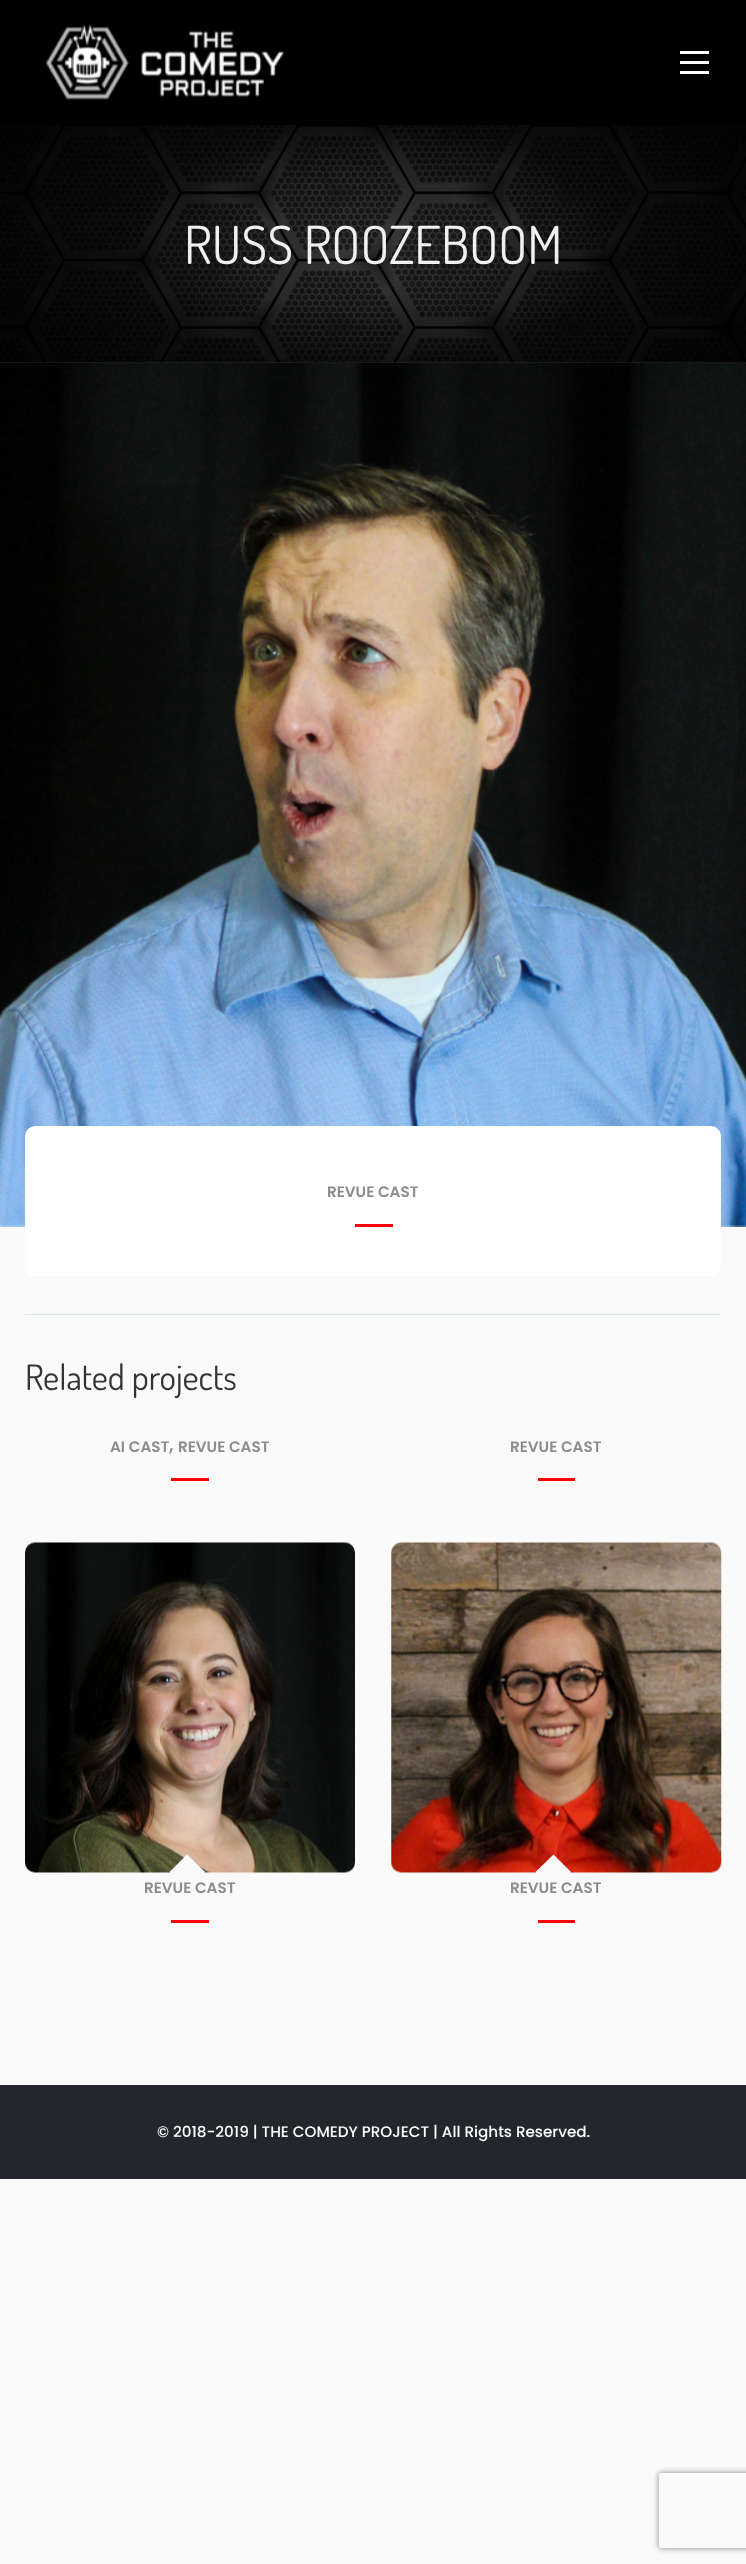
async function draw(canvas) {
  canvas.width = 746;
  canvas.height = 2564;
  const ctx = canvas.getContext('2d');
  ctx.miterLimit = 4;
  ctx.fontKerning = 'normal';
  function label(s, x, y, font, color) {
    ctx.font = font;
    ctx.fillStyle = color;
    ctx.fillText(s, x, y);
  }
  function rect(x, y, w, h, color) {
    ctx.fillStyle = color;
    ctx.fillRect(x, y, w, h);
  }
  function roundedRect(x, y, w, h, r, color) {
    ctx.fillStyle = color;
    ctx.beginPath();
    ctx.roundRect(x, y, w, h, r);
    ctx.fill();
  }
  async function image(src, x, y, w, h) {
    const img = new Image();
    img.src = src;
    await img.decode();
    ctx.drawImage(img, x, y, w, h);
  }
  let path;

  rect(0, 0, 746, 2564, '#fafafa');
  rect(0, 0, 746, 125, '#000');
  await image('assets/img1.png', 46, 24, 238, 76);
  rect(680, 61, 29, 3, '#fff');
  rect(680, 51, 29, 3, '#fff');
  rect(680, 71, 29, 3, '#fff');
  rect(0, 362, 746, 1, '#272b31');
  await image('assets/img2.png', 0, 125, 746, 238);
  label('RUSS ROOZEBOOM', 184, 264, '52.5px Dosis', '#f0f0f0');
  await image('assets/img3.png', 0, 363, 746, 864);
  roundedRect(25, 1126, 696, 150, 10, '#fff');
  label('REVUE CAST', 327, 1197, '600 15.2px Poppins', '#8c8c8c');
  rect(355, 1224, 38, 3, '#f00');
  rect(25, 1314, 696, 1, '#d8e8ec');
  label('Related projects', 25, 1390, '35px Dosis', '#333');
  label('AI CAST', 110, 1452, '600 15.2px Poppins', '#8c8c8c');
  label(',', 169, 1451, '600 18px Poppins', '#8c8c8c');
  label('REVUE CAST', 178, 1452, '600 15.2px Poppins', '#8c8c8c');
  rect(171, 1478, 38, 3, '#f00');
  label('REVUE CAST', 510, 1452, '600 15.2px Poppins', '#8c8c8c');
  rect(538, 1478, 37, 3, '#f00');
  await image('assets/img4.png', 25, 1542, 330, 331);
  ctx.save();
  ctx.beginPath();
  ctx.rect(25, 1543, 330, 330);
  ctx.clip();
  ctx.fillStyle = '#fafafa';
  path = new Path2D('M187 1854.5L205 1872L187 1889.5L169.5 1872Z');
  ctx.fill(path);
  ctx.restore();
  label('REVUE CAST', 144, 1893, '600 15.2px Poppins', '#8c8c8c');
  rect(171, 1920, 38, 3, '#f00');
  await image('assets/img5.png', 391, 1542, 331, 331);
  ctx.save();
  ctx.beginPath();
  ctx.rect(391, 1543, 330, 330);
  ctx.clip();
  ctx.fillStyle = '#fafafa';
  path = new Path2D('M553.5 1854.5L571 1872L553.5 1889.5L535.5 1872Z');
  ctx.fill(path);
  ctx.restore();
  label('REVUE CAST', 510, 1893, '600 15.2px Poppins', '#8c8c8c');
  rect(538, 1920, 37, 3, '#f00');
  rect(0, 2085, 746, 94, '#23272c');
  label('© 2018-2019 | THE COMEDY PROJECT | All Rights Reserved.', 157, 2137, '500 15.2px Poppins', '#fff');
  ctx.save();
  path = new Path2D('M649 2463H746V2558H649ZM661.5 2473H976.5C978 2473 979 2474 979 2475.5V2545.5C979 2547 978 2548 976.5 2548H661.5C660 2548 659 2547 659 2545.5V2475.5C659 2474 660 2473 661.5 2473Z');
  ctx.clip(path, 'evenodd');
  ctx.fillStyle = '#808080';
  ctx.filter = 'blur(3px)';
  ctx.beginPath();
  ctx.roundRect(659, 2473, 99, 75, 2.5);
  ctx.fill();
  ctx.filter = 'none';
  ctx.restore();
}

draw(document.querySelector('canvas'));
